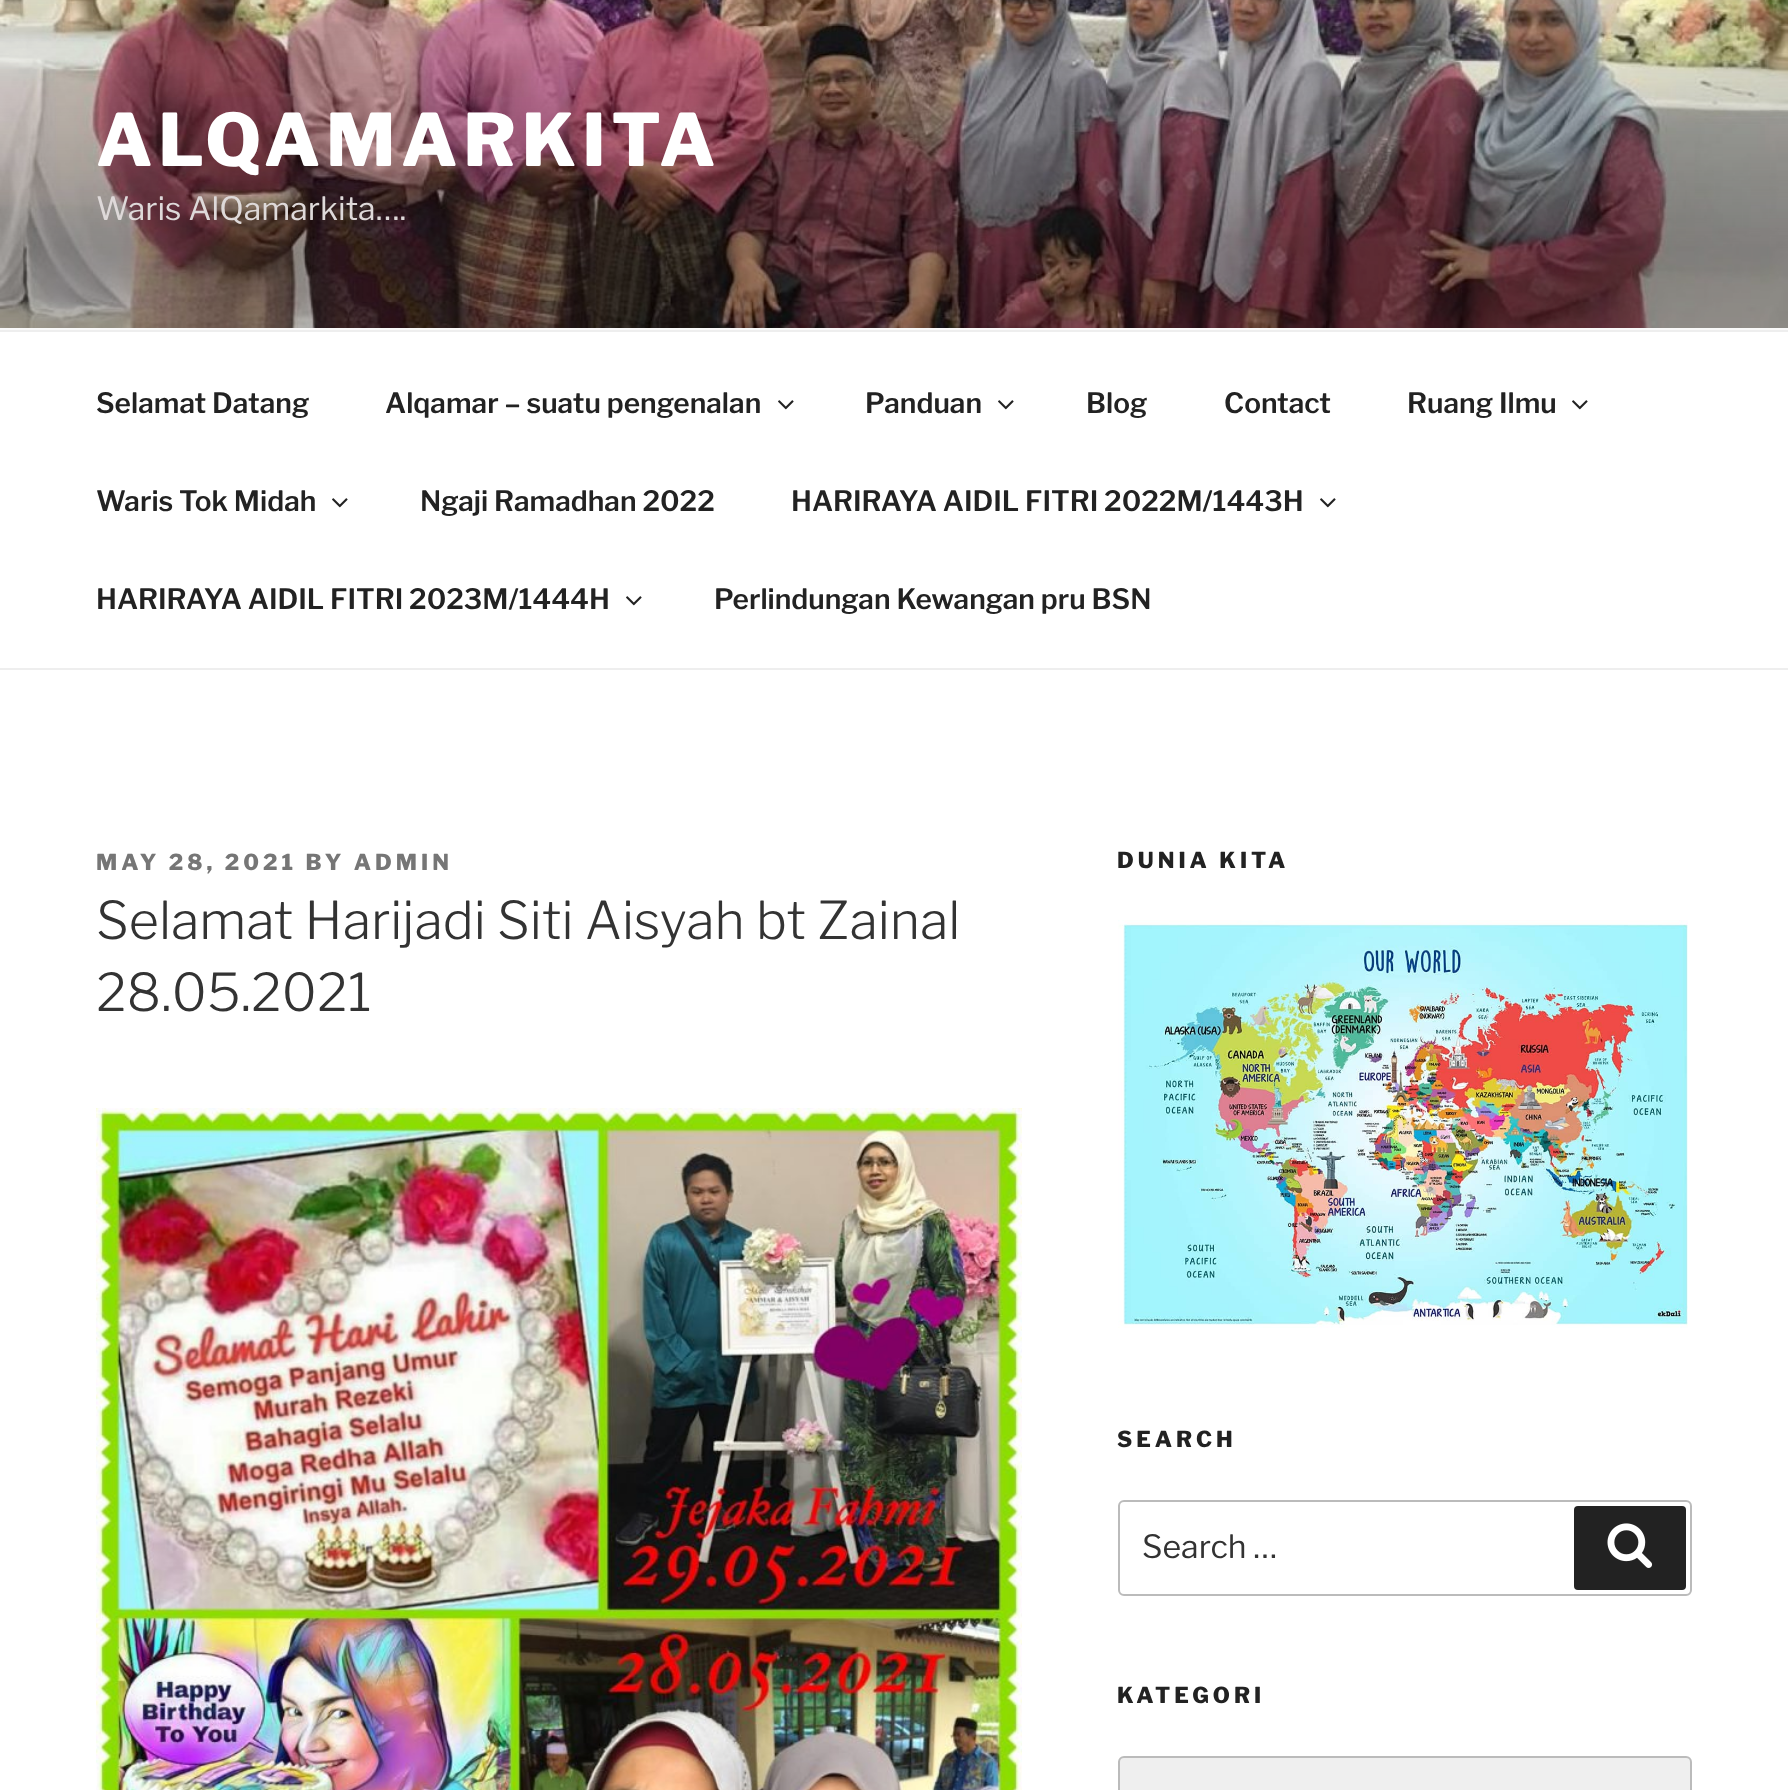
async function draw(canvas) {
  canvas.width = 1788;
  canvas.height = 1790;
  const ctx = canvas.getContext('2d');
  ctx.miterLimit = 4;
  ctx.fontKerning = 'normal';
  function label(s, x, y, font, color) {
    ctx.font = font;
    ctx.fillStyle = color;
    ctx.fillText(s, x, y);
  }
  function rect(x, y, w, h, color) {
    ctx.fillStyle = color;
    ctx.fillRect(x, y, w, h);
  }
  function roundedRect(x, y, w, h, r, color) {
    ctx.fillStyle = color;
    ctx.beginPath();
    ctx.roundRect(x, y, w, h, r);
    ctx.fill();
  }
  async function image(src, x, y, w, h) {
    const img = new Image();
    img.src = src;
    await img.decode();
    ctx.drawImage(img, x, y, w, h);
  }

  rect(0, 0, 1788, 1790, '#fff');
  rect(0, 328, 1788, 2, '#fafafa');
  await image('assets/img1.png', 0, 0, 1788, 328);
  ctx.letterSpacing = '5.75px';
  label('ALQAMARKITA', 96, 166, '100 72px Libre Franklin', '#fff');
  ctx.letterSpacing = '0px';
  label('Waris AlQamarkita….', 96, 220, '100 32px "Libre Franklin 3"', '#ded9d9');
  rect(0, 330, 1788, 2, '#eee');
  rect(0, 668, 1788, 2, '#eee');
  label('Selamat Datang', 96, 413, '100 28px "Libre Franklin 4"', '#222');
  label('Alqamar – suatu pengenalan', 385, 413, '100 28px "Libre Franklin 4"', '#222');
  await image('assets/img2.png', 778, 400, 16, 10);
  label('Panduan', 865, 413, '100 28px "Libre Franklin 4"', '#222');
  await image('assets/img2.png', 998, 400, 16, 10);
  label('Blog', 1086, 413, '100 28px "Libre Franklin 4"', '#222');
  label('Contact', 1224, 413, '100 28px "Libre Franklin 4"', '#222');
  label('Ruang Ilmu', 1407, 413, '100 28px "Libre Franklin 4"', '#222');
  await image('assets/img2.png', 1572, 400, 16, 10);
  label('Waris Tok Midah', 96, 511, '100 28px "Libre Franklin 4"', '#222');
  await image('assets/img2.png', 332, 498, 16, 10);
  label('Ngaji Ramadhan 2022', 420, 511, '100 28px "Libre Franklin 4"', '#222');
  label('HARIRAYA AIDIL FITRI 2022M/1443H', 791, 511, '100 28px "Libre Franklin 4"', '#222');
  await image('assets/img2.png', 1320, 498, 16, 10);
  label('HARIRAYA AIDIL FITRI 2023M/1444H', 96, 609, '100 28px "Libre Franklin 4"', '#222');
  await image('assets/img2.png', 626, 596, 16, 10);
  label('Perlindungan Kewangan pru BSN', 714, 609, '100 28px "Libre Franklin 4"', '#222');
  ctx.letterSpacing = '4px';
  label('MAY 28, 2021 BY ADMIN', 96, 870, '100 22px Libre Franklin', '#767676');
  ctx.letterSpacing = '0px';
  label('Selamat Harijadi Siti Aisyah bt Zainal', 96, 939, '100 52px "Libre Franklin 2"', '#333');
  label('28.05.2021', 96, 1011, '100 52px "Libre Franklin 2"', '#333');
  await image('assets/img3.png', 96, 1108, 926, 682);
  ctx.letterSpacing = '4px';
  label('DUNIA KITA', 1117, 868, '100 22px Libre Franklin', '#222');
  await image('assets/img4.png', 1118, 920, 570, 408);
  label('SEARCH', 1117, 1447, '100 22px Libre Franklin', '#222');
  ctx.beginPath();
  ctx.roundRect(1119, 1501, 572, 94, 5);
  ctx.strokeStyle = '#bbb';
  ctx.lineWidth = 2;
  ctx.stroke();
  ctx.letterSpacing = '0px';
  label('Search …', 1142, 1558, '100 32px "Libre Franklin 3"', '#333');
  roundedRect(1574, 1506, 112, 84, 4, '#222');
  await image('assets/img5.png', 1607, 1523, 46, 45);
  ctx.letterSpacing = '4px';
  label('KATEGORI', 1117, 1703, '100 22px Libre Franklin', '#222');
  ctx.fillStyle = '#efefef';
  ctx.beginPath();
  ctx.roundRect(1119, 1757, 572, 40, 5);
  ctx.fill();
  ctx.stroke();
}

draw(document.querySelector('canvas'));
